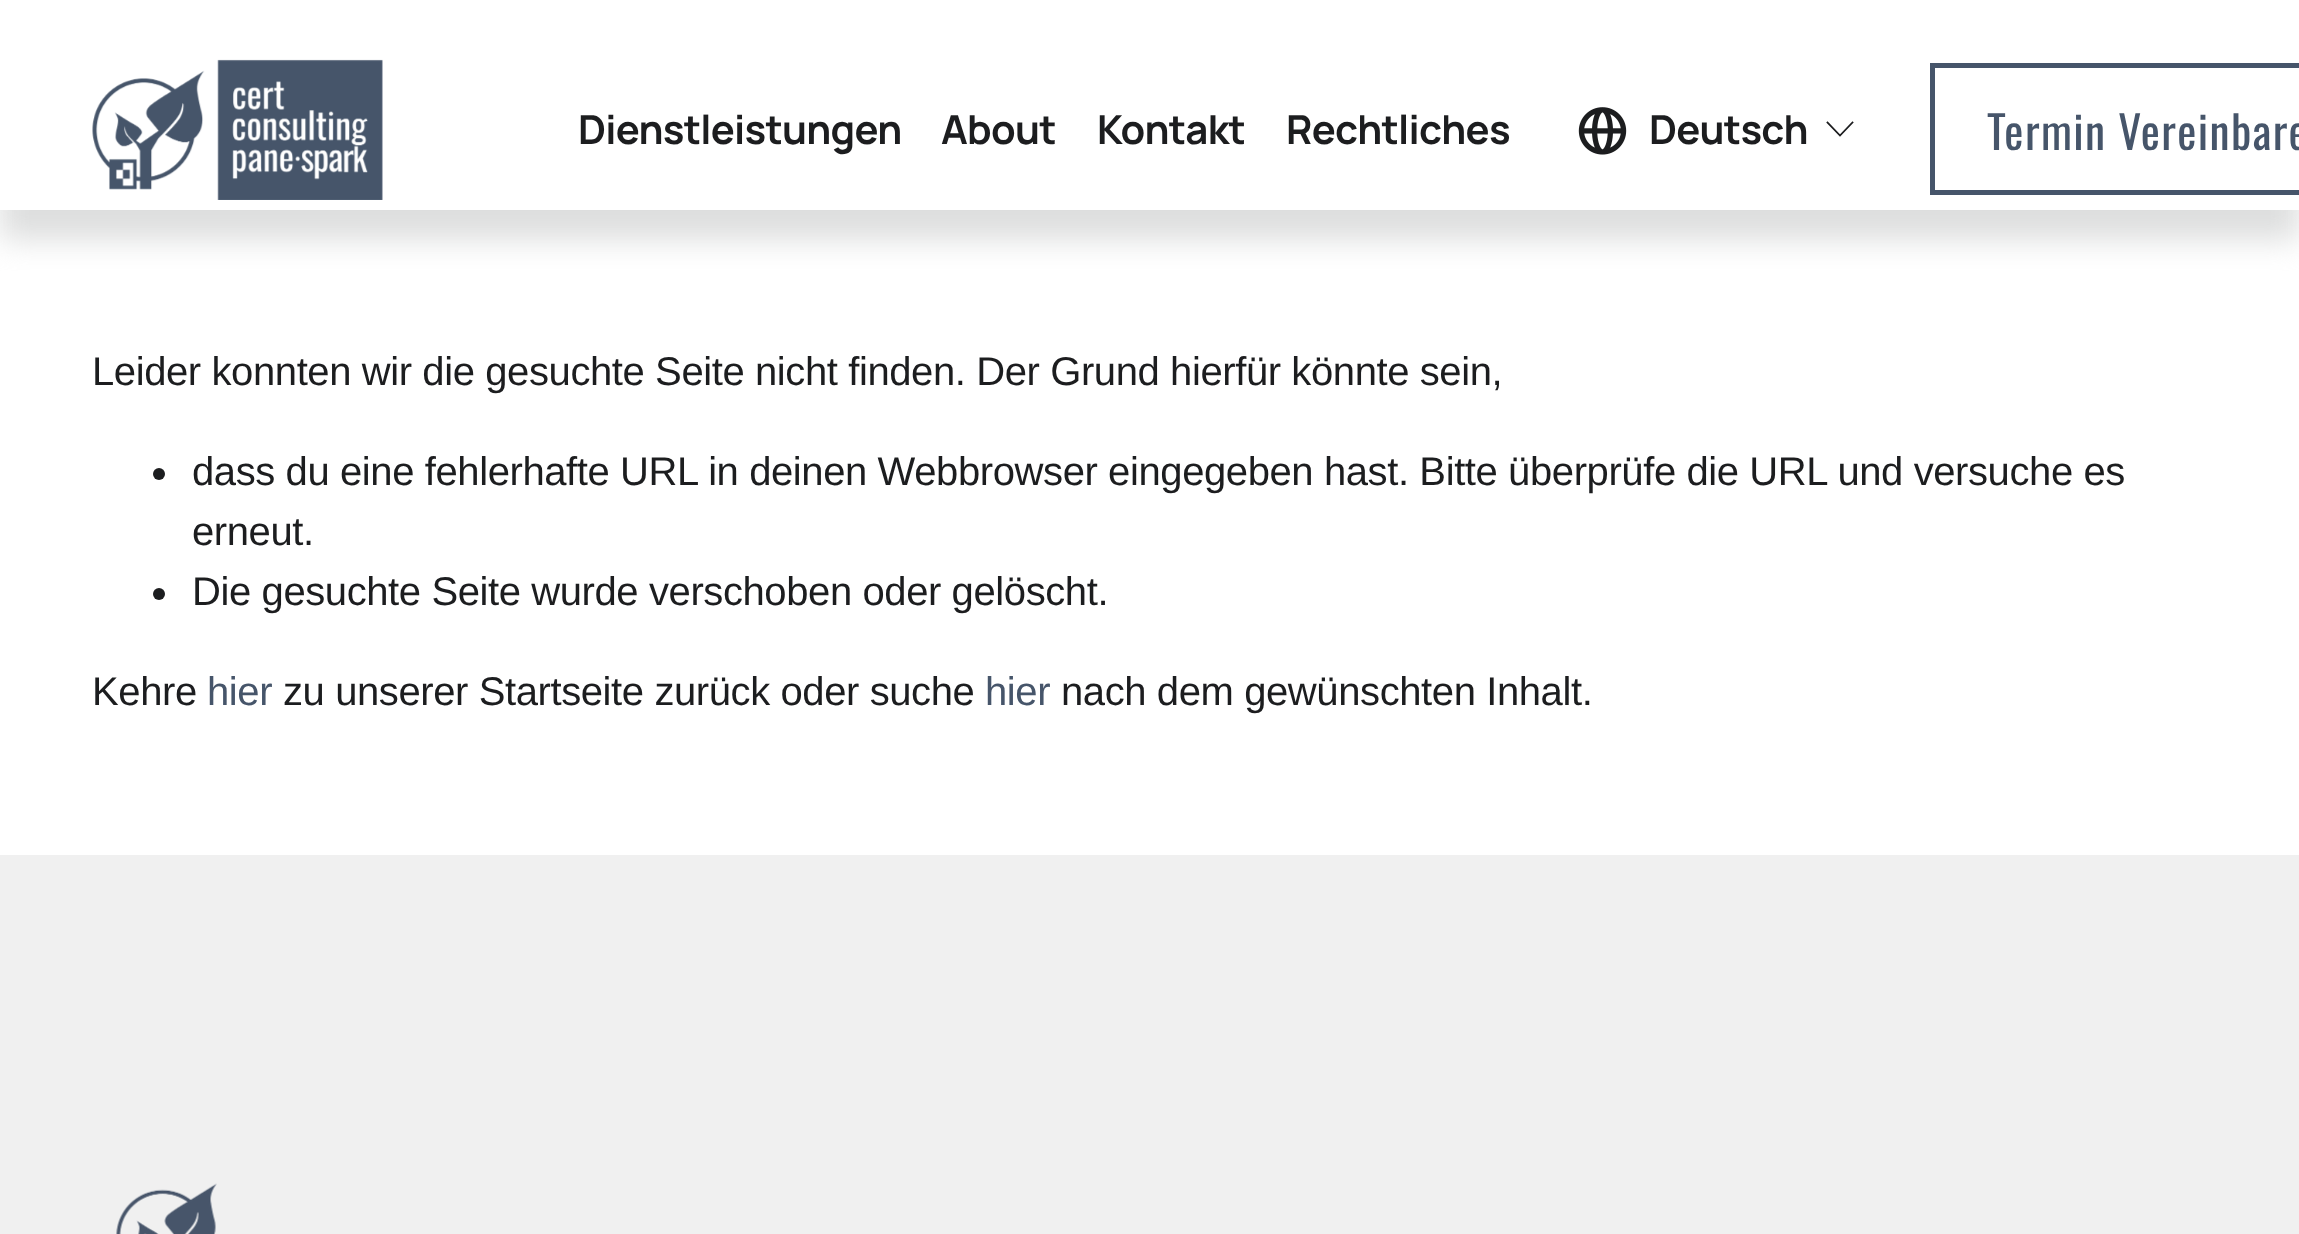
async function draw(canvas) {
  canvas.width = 2299;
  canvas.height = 1234;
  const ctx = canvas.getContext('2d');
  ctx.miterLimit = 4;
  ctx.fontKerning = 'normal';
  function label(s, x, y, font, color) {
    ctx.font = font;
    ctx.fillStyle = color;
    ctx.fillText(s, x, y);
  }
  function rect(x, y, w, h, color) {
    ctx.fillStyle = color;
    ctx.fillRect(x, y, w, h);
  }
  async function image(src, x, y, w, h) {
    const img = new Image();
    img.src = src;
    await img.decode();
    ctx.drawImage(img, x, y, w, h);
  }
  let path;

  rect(0, 0, 2299, 1234, '#fff');
  ctx.save();
  ctx.beginPath();
  ctx.rect(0, 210, 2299, 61);
  ctx.clip();
  ctx.fillStyle = '#dddede';
  ctx.filter = 'blur(15px)';
  ctx.beginPath();
  ctx.rect(0, 30, 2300, 210);
  ctx.fill();
  ctx.filter = 'none';
  ctx.restore();
  await image('assets/img1.png', 92, 59, 291, 141);
  ctx.letterSpacing = '-0.75px';
  label('Dienstleistungen', 578, 144, '200 40px Manrope', '#1c1d1f');
  label('About', 941, 144, '200 40px Manrope', '#1c1d1f');
  label('Kontakt', 1097, 144, '200 40px Manrope', '#1c1d1f');
  label('Rechtliches', 1286, 144, '200 40px Manrope', '#1c1d1f');
  await image('assets/img2.png', 1578, 107, 49, 48);
  label('Deutsch', 1649, 144, '200 40px Manrope', '#1c1d1f');
  path = new Path2D('M1852.5 122.5L1840 135.5L1827.5 122.5');
  ctx.strokeStyle = '#1c1d1f';
  ctx.lineWidth = 1.8;
  ctx.lineCap = 'square';
  ctx.stroke(path);
  ctx.strokeStyle = '#46556a';
  ctx.lineWidth = 5;
  ctx.strokeRect(1932.5, 65.5, 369, 127);
  ctx.letterSpacing = '1.4px';
  label('Termin Vereinbare', 1987, 150, '45.5px Oswald', '#46556a');
  ctx.letterSpacing = '-0.4px';
  label('Leider konnten wir die gesuchte Seite nicht finden. Der Grund hierfür könnte sein,', 92, 385, '40px Liberation Sans', '#1c1d1f');
  ctx.beginPath();
  ctx.arc(159, 474, 6, 0, 2 * Math.PI);
  ctx.fill();
  label('dass du eine fehlerhafte URL in deinen Webbrowser eingegeben hast. Bitte überprüfe die URL und versuche es', 192, 485, '40px Liberation Sans', '#1c1d1f');
  label('erneut.', 192, 545, '40px Liberation Sans', '#1c1d1f');
  ctx.beginPath();
  ctx.arc(159, 594, 6, 0, 2 * Math.PI);
  ctx.fill();
  label('Die gesuchte Seite wurde verschoben oder gelöscht.', 192, 605, '40px Liberation Sans', '#1c1d1f');
  label('Kehre', 92, 705, '40px Liberation Sans', '#1c1d1f');
  label('hier', 207, 705, '40px Liberation Sans', '#46556a');
  label('zu unserer Startseite zurück oder suche', 283, 705, '40px Liberation Sans', '#1c1d1f');
  label('hier', 985, 705, '40px Liberation Sans', '#46556a');
  label('nach dem gewünschten Inhalt.', 1061, 705, '40px Liberation Sans', '#1c1d1f');
  rect(0, 855, 2299, 379, '#f0f0f0');
  await image('assets/img3.png', 116, 1183, 101, 51);
}

draw(document.querySelector('canvas'));
